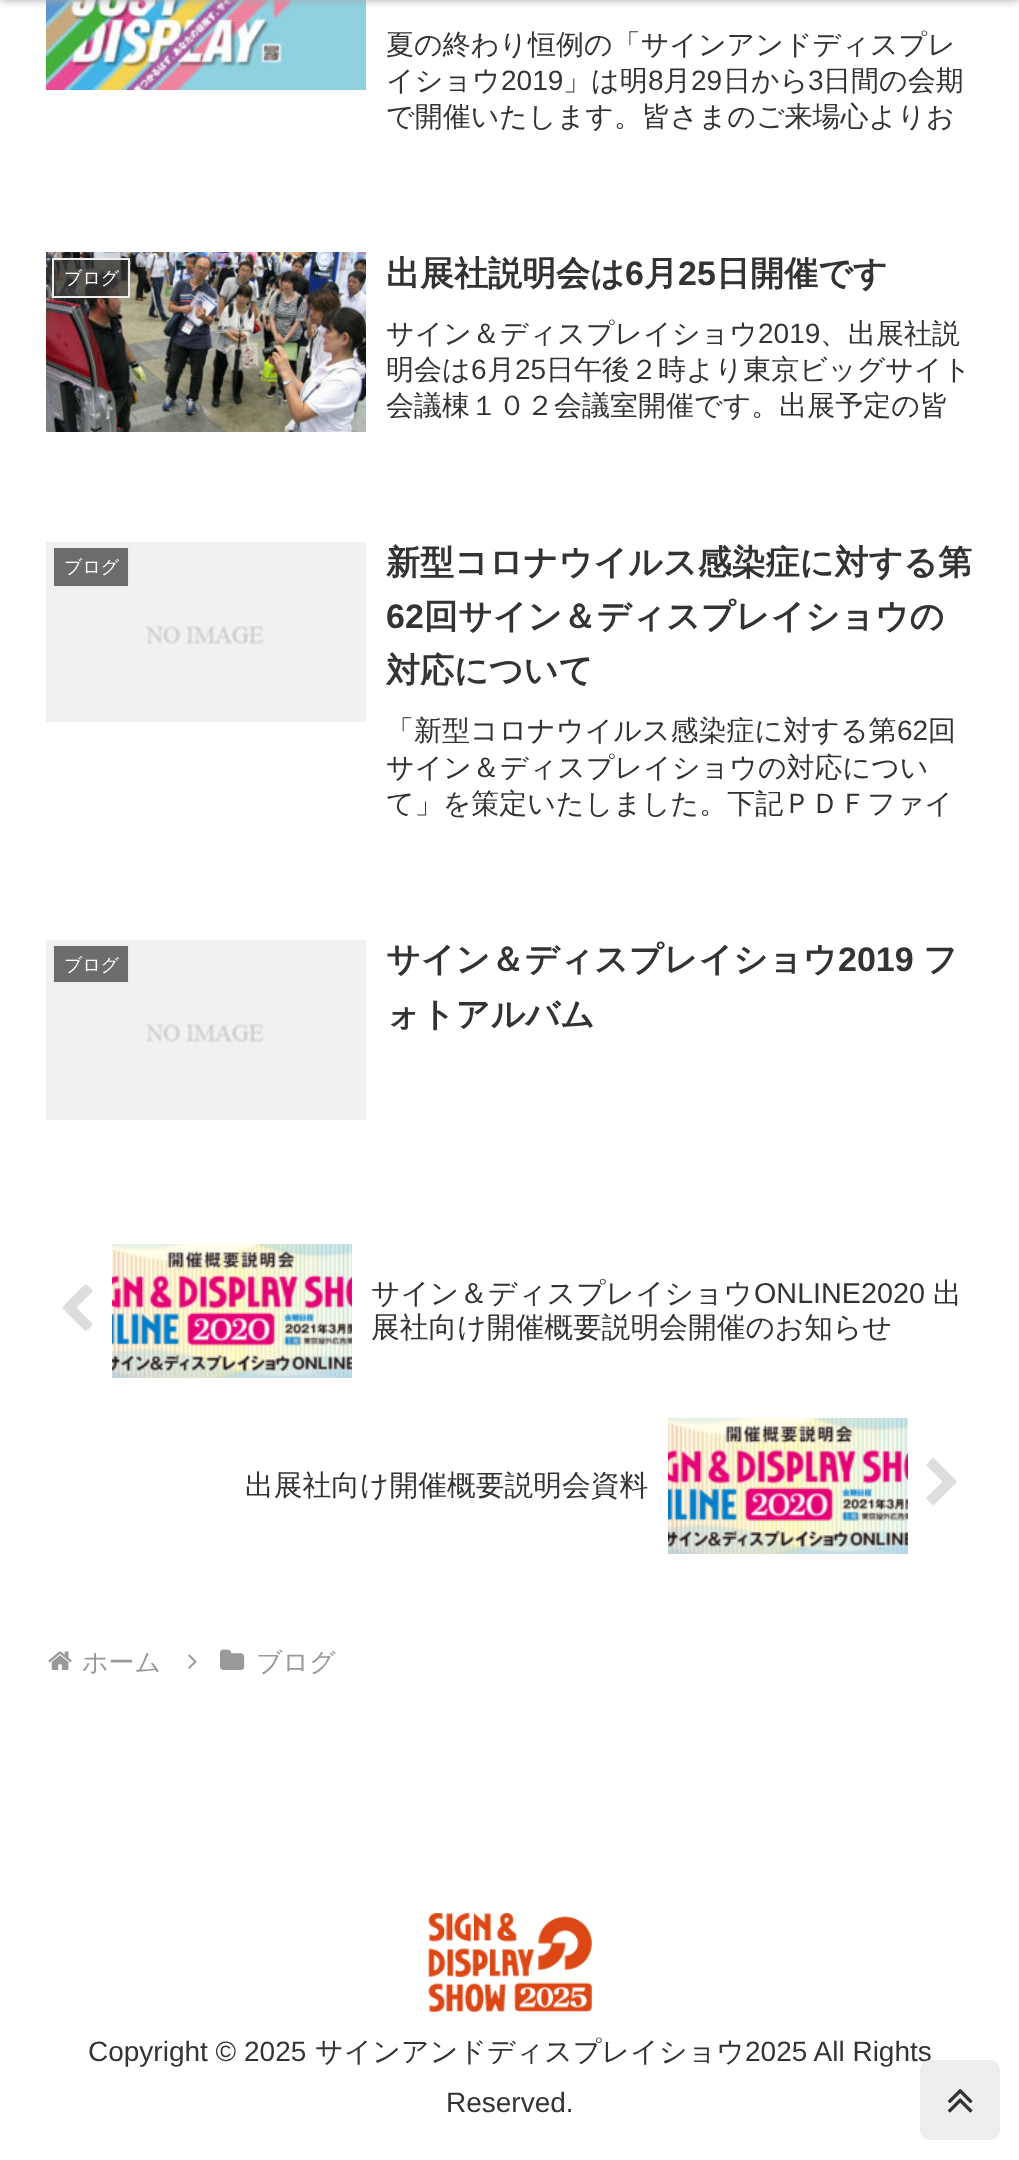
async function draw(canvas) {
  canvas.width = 1019;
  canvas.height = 2160;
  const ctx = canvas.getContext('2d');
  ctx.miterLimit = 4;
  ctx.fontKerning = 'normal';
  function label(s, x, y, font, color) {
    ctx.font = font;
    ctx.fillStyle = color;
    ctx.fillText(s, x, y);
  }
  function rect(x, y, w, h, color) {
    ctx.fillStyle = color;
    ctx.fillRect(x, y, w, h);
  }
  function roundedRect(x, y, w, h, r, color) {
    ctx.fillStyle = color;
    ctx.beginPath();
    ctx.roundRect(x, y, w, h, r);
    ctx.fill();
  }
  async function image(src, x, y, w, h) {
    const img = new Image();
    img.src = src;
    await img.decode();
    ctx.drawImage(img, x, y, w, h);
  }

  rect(0, 0, 1019, 2160, '#fff');
  await image('assets/img1.png', 46, 0, 320, 90);
  ctx.fillStyle = '#a9a9a9';
  ctx.filter = 'blur(5px)';
  ctx.beginPath();
  ctx.rect(0, -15, 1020, 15);
  ctx.fill();
  ctx.filter = 'none';
  label('夏の終わり恒例の「サインアンドディスプレ', 386, 54, '500 28px WenQuanYi Zen Hei', '#333');
  label('イショウ', 386, 90, '500 28px WenQuanYi Zen Hei', '#333');
  label('2019', 501, 90, '28px Liberation Sans', '#333');
  label('」は明', 563, 90, '500 28px WenQuanYi Zen Hei', '#333');
  label('8', 648, 90, '28px Liberation Sans', '#333');
  label('月', 663, 90, '500 28px WenQuanYi Zen Hei', '#333');
  label('29', 691, 90, '28px Liberation Sans', '#333');
  label('日から', 723, 90, '500 28px WenQuanYi Zen Hei', '#333');
  label('3', 808, 90, '28px Liberation Sans', '#333');
  label('日間の会期', 823, 90, '500 28px WenQuanYi Zen Hei', '#333');
  label('で開催いたします。皆さまのご来場心よりお', 386, 126, '500 28px WenQuanYi Zen Hei', '#333');
  await image('assets/img2.png', 46, 252, 320, 180);
  ctx.fillStyle = '#333333b3';
  ctx.beginPath();
  ctx.rect(53, 259, 76, 38);
  ctx.fill();
  ctx.strokeStyle = '#eee';
  ctx.lineWidth = 2;
  ctx.stroke();
  label('ブログ', 64, 284, '500 18px WenQuanYi Zen Hei', '#fff');
  label('出展社説明会は', 386, 285, 'bold 34px WenQuanYi Zen Hei', '#333');
  label('6', 625, 285, 'bold 34px Liberation Sans', '#333');
  label('月', 644, 285, 'bold 34px WenQuanYi Zen Hei', '#333');
  label('25', 678, 285, 'bold 34px Liberation Sans', '#333');
  label('日開催です', 716, 285, 'bold 34px WenQuanYi Zen Hei', '#333');
  label('サイン＆ディスプレイショウ', 386, 343, '500 28px WenQuanYi Zen Hei', '#333');
  label('2019', 758, 343, '28px Liberation Sans', '#333');
  label('、出展社説', 820, 343, '500 28px WenQuanYi Zen Hei', '#333');
  label('明会は', 386, 379, '500 28px WenQuanYi Zen Hei', '#333');
  label('6', 471, 379, '28px Liberation Sans', '#333');
  label('月', 487, 379, '500 28px WenQuanYi Zen Hei', '#333');
  label('25', 515, 379, '28px Liberation Sans', '#333');
  label('日午後２時より東京ビッグサイト', 546, 379, '500 28px WenQuanYi Zen Hei', '#333');
  label('会議棟１０２会議室開催です。出展予定の皆', 386, 415, '500 28px WenQuanYi Zen Hei', '#333');
  await image('assets/img3.png', 46, 542, 320, 180);
  ctx.fillStyle = '#6c6c6c';
  ctx.beginPath();
  ctx.rect(53, 547, 76, 40);
  ctx.fill();
  ctx.stroke();
  label('ブログ', 64, 573, '500 18px WenQuanYi Zen Hei', '#fff');
  label('新型コロナウイルス感染症に対する第', 386, 574, 'bold 34px WenQuanYi Zen Hei', '#333');
  label('62', 386, 628, 'bold 34px Liberation Sans', '#333');
  label('回サイン＆ディスプレイショウの', 424, 628, 'bold 34px WenQuanYi Zen Hei', '#333');
  label('対応について', 386, 682, 'bold 34px WenQuanYi Zen Hei', '#333');
  label('「新型コロナウイルス感染症に対する第', 386, 740, '500 28px WenQuanYi Zen Hei', '#333');
  label('62', 897, 740, '28px Liberation Sans', '#333');
  label('回', 928, 740, '500 28px WenQuanYi Zen Hei', '#333');
  label('サイン＆ディスプレイショウの対応につい', 386, 777, '500 28px WenQuanYi Zen Hei', '#333');
  label('て」を策定いたしました。下記ＰＤＦファイ', 386, 813, '500 28px WenQuanYi Zen Hei', '#333');
  await image('assets/img3.png', 46, 940, 320, 180);
  ctx.fillStyle = '#6c6c6c';
  ctx.beginPath();
  ctx.rect(53, 945, 76, 38);
  ctx.fill();
  ctx.stroke();
  label('ブログ', 64, 971, '500 18px WenQuanYi Zen Hei', '#fff');
  label('サイン＆ディスプレイショウ', 386, 971, 'bold 34px WenQuanYi Zen Hei', '#333');
  label('2019', 838, 971, 'bold 34px Liberation Sans', '#333');
  label('フ', 923, 971, 'bold 34px WenQuanYi Zen Hei', '#333');
  label('ォトアルバム', 386, 1026, 'bold 34px WenQuanYi Zen Hei', '#333');
  await image('assets/img4.png', 62, 1284, 31, 47);
  await image('assets/img5.png', 112, 1244, 240, 134);
  label('サイン＆ディスプレイショウ', 371, 1303, '500 28.75px WenQuanYi Zen Hei', '#333');
  label('ONLINE2020', 754, 1303, '28.75px Liberation Sans', '#333');
  label('出', 933, 1303, '500 28.75px WenQuanYi Zen Hei', '#333');
  label('展社向け開催概要説明会開催のお知らせ', 371, 1337, '500 28.75px WenQuanYi Zen Hei', '#333');
  label('出展社向け開催概要説明会資料', 245, 1495, '500 28.75px WenQuanYi Zen Hei', '#333');
  await image('assets/img6.png', 668, 1418, 240, 136);
  await image('assets/img7.png', 926, 1458, 31, 47);
  await image('assets/img8.png', 48, 1651, 24, 19);
  label('ホーム', 82, 1671, '500 26px WenQuanYi Zen Hei', '#999');
  await image('assets/img9.png', 188, 1654, 9, 15);
  await image('assets/img10.png', 220, 1649, 25, 21);
  label('ブログ', 256, 1671, '500 26px WenQuanYi Zen Hei', '#999');
  await image('assets/img11.png', 428, 1912, 164, 100);
  label('Copyright © 2025', 88, 2061, '28px Liberation Sans', '#333');
  label('サインアンドディスプレイショウ', 315, 2061, '500 28px WenQuanYi Zen Hei', '#333');
  label('2025 All Rights', 745, 2061, '28px Liberation Sans', '#333');
  label('Reserved.', 446, 2112, '28px Liberation Sans', '#333');
  roundedRect(920, 2060, 80, 80, 10, '#eee');
  await image('assets/img12.png', 947, 2088, 26, 25);
}

draw(document.querySelector('canvas'));
